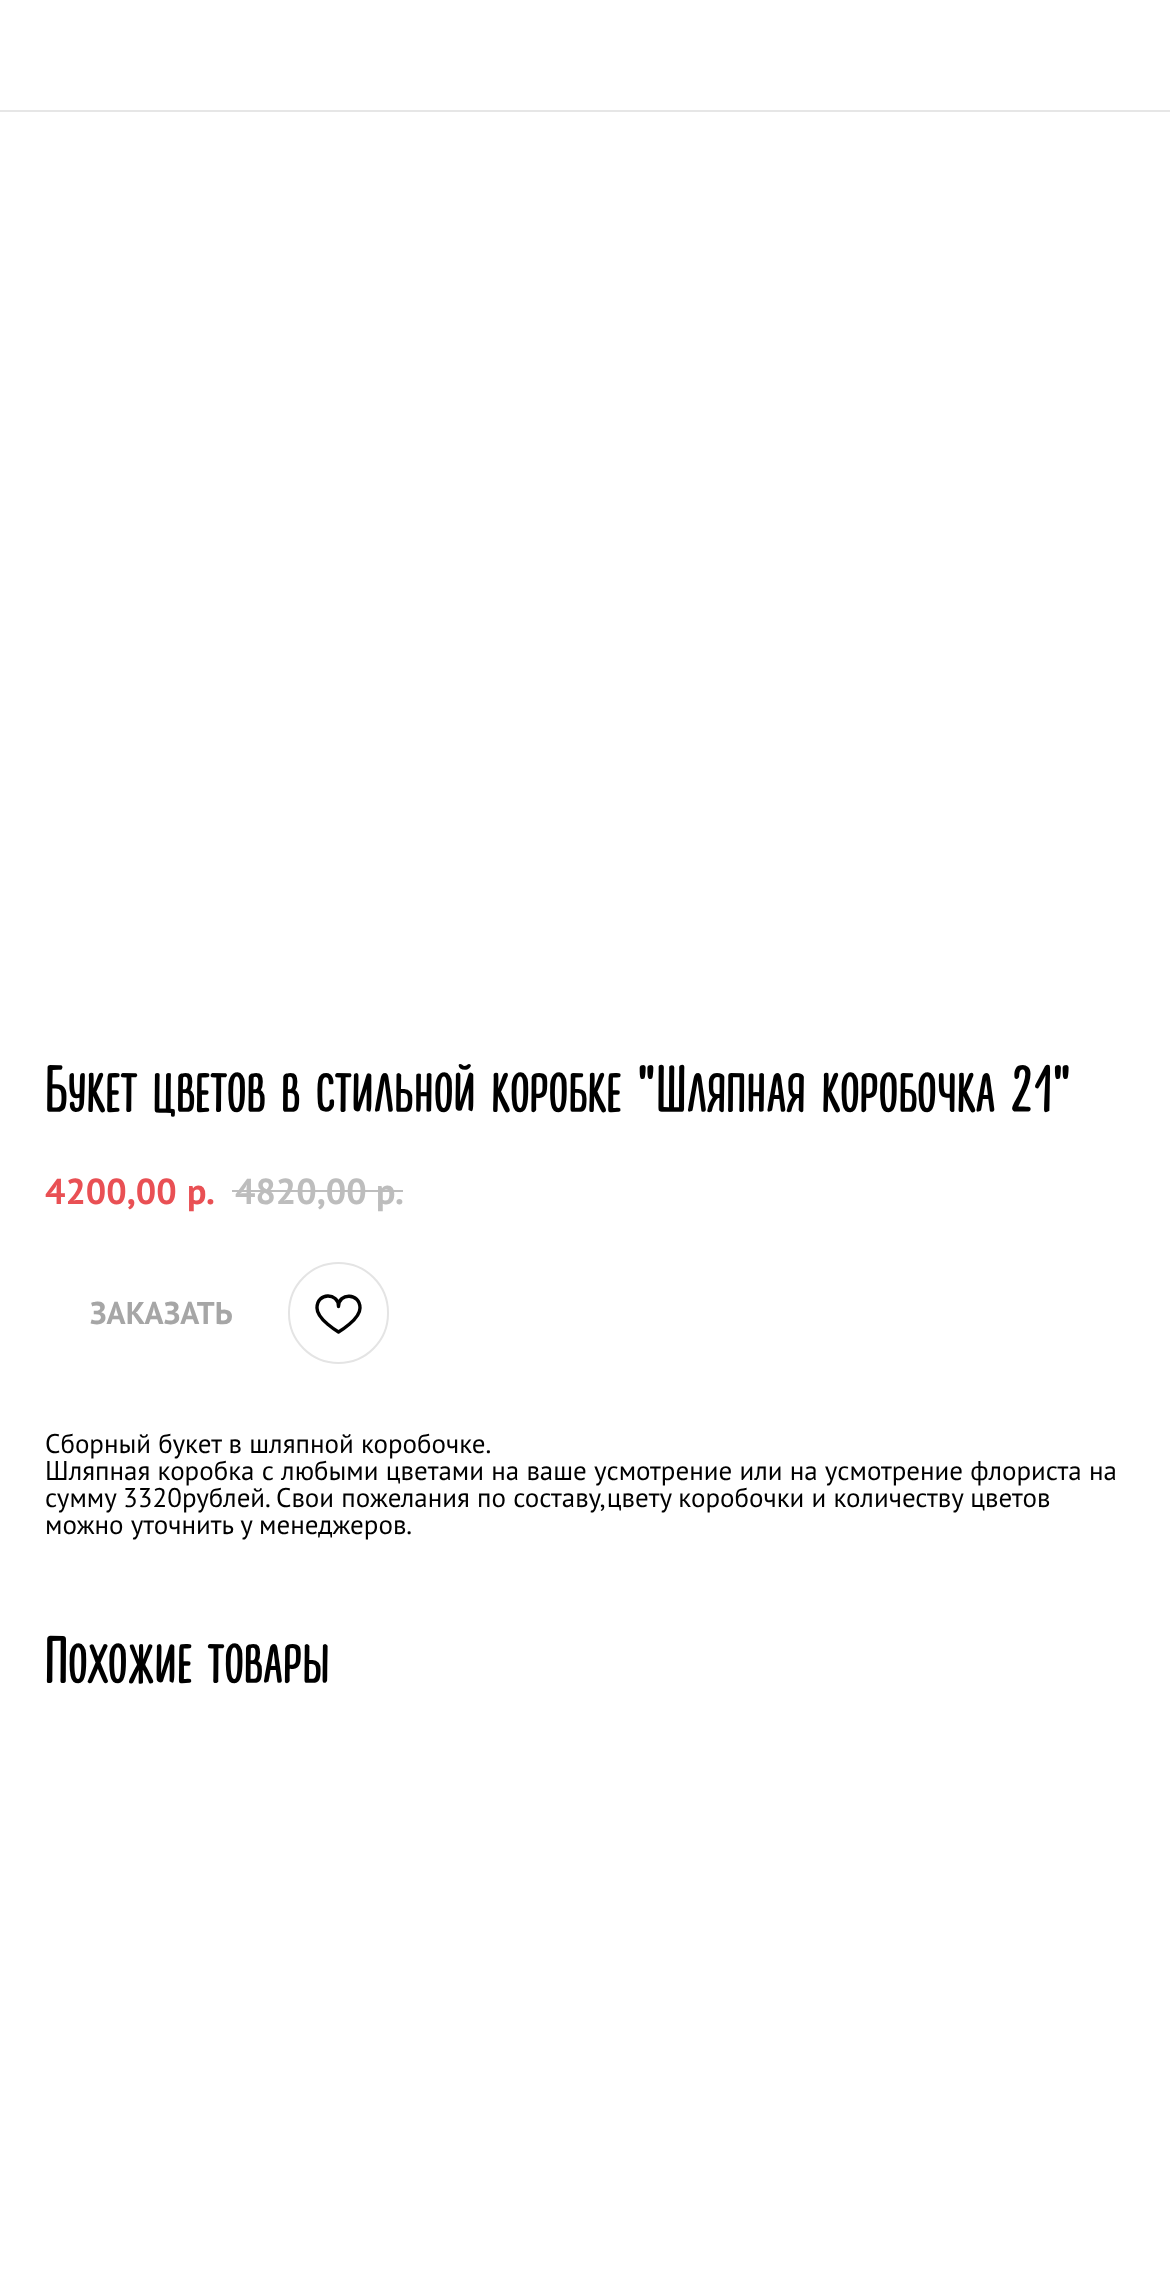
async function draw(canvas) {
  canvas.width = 1170;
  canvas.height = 2296;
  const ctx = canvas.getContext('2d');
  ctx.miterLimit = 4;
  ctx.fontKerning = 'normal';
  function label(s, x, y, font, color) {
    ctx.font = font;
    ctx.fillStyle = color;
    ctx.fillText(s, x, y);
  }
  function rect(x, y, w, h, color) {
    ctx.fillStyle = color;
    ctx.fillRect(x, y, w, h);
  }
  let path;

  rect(0, 0, 1170, 2296, '#fff');
  rect(0, 110, 1170, 2, '#e6e6e6');
  label('Букет цветов в стильной коробке "Шляпная коробочка 21"', 45, 1112, '500 67.5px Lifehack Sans', '#000');
  label('4200,00', 45, 1204, 'bold 36px PT Sans', '#e95054');
  label('р.', 187, 1204, 'bold 36px PT Sans', '#e95054');
  label('4820,00', 235, 1204, 'bold 36px PT Sans', '#bdbdbd');
  label('р.', 376, 1204, 'bold 36px PT Sans', '#bdbdbd');
  rect(232, 1190, 171, 2, '#bdbdbd');
  label('ЗАКАЗАТЬ', 90, 1324, 'bold 31.5px PT Sans', '#a6a6a6');
  ctx.beginPath();
  ctx.roundRect(289, 1263, 99, 100, 49.5);
  ctx.strokeStyle = '#e4e4e4';
  ctx.lineWidth = 2;
  ctx.stroke();
  path = new Path2D('M360 1308C360 1319.5 338.5 1332 338.5 1332C338.5 1332 317 1319.5 317 1308C317 1292 338.5 1292.5 338.5 1306.5C338.5 1292.5 360 1292.5 360 1308Z');
  ctx.strokeStyle = '#000';
  ctx.lineWidth = 3.4;
  ctx.lineJoin = 'round';
  ctx.stroke(path);
  label('Сборный букет в шляпной коробочке.', 45, 1453, '27px PT Sans', '#000');
  label('Шляпная коробка с любыми цветами на ваше усмотрение или на усмотрение флориста на', 45, 1480, '27px PT Sans', '#000');
  label('сумму 3320рублей. Свои пожелания по составу,цвету коробочки и количеству цветов', 45, 1507, '27px PT Sans', '#000');
  label('можно уточнить у менеджеров.', 45, 1534, '27px PT Sans', '#000');
  label('Похожие товары', 45, 1683, '500 67.5px Lifehack Sans', '#000');
}

draw(document.querySelector('canvas'));
